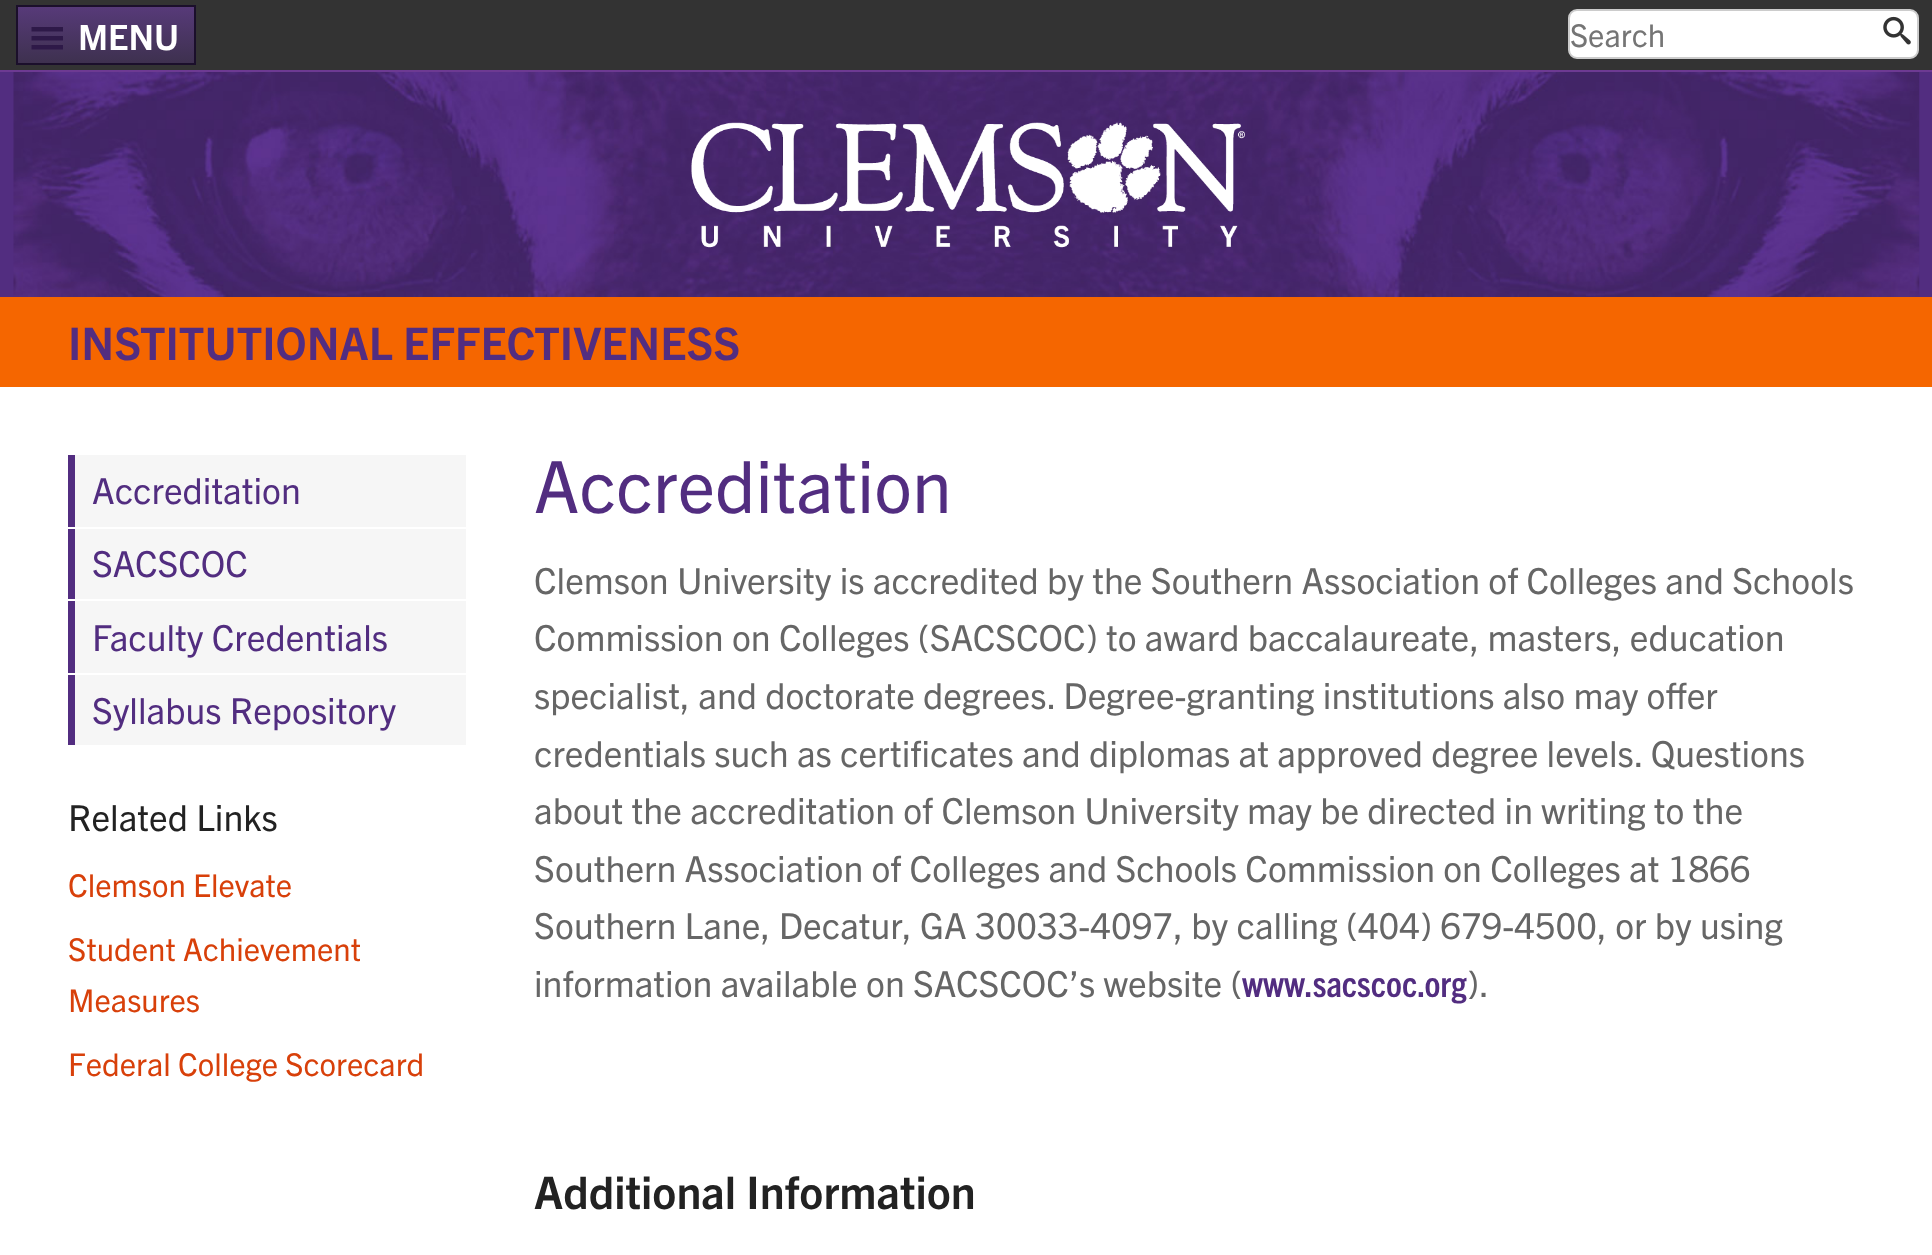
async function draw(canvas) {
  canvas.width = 1932;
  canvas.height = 1255;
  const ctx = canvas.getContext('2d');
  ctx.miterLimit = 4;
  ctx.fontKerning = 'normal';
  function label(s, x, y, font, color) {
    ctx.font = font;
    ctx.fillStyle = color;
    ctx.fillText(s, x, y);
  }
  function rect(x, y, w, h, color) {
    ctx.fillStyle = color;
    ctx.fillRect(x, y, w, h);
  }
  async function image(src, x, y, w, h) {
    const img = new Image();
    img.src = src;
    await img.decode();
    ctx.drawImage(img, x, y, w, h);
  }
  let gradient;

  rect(0, 0, 1932, 1255, '#fff');
  rect(0, 0, 1932, 70, '#333');
  gradient = ctx.createLinearGradient(106, 6.7, 106, 63);
  gradient.addColorStop(0, '#573a79');
  gradient.addColorStop(1, '#3e314f');
  ctx.fillStyle = gradient;
  ctx.fillRect(18, 7, 176, 56);
  ctx.strokeStyle = '#1b0f2b';
  ctx.lineWidth = 2;
  ctx.strokeRect(17, 6, 178, 58);
  await image('assets/img1.png', 31, 27, 32, 23);
  label('MENU', 78, 50, 'bold 35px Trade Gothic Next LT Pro', '#fff');
  ctx.beginPath();
  ctx.roundRect(1569, 10, 349, 48, 8);
  ctx.fill();
  ctx.strokeStyle = '#ccc';
  ctx.stroke();
  label('Search', 1570, 47, '31.5px Trade Gothic Next LT Pro', '#757575');
  await image('assets/img2.png', 1883, 16, 28, 29);
  rect(0, 72, 1932, 225, '#522d80');
  rect(0, 70, 1932, 2, '#6d3a92');
  await image('assets/img3.png', 13, 72, 1907, 225);
  await image('assets/img4.png', 691, 122, 554, 126);
  rect(0, 297, 1932, 90, '#f56600');
  label('INSTITUTIONAL EFFECTIVENESS', 68, 360, 'bold 45px Trade Gothic Next LT Pro', '#522d80');
  rect(75, 455, 391, 72, '#f6f6f6');
  rect(68, 455, 7, 72, '#522d80');
  label('Accreditation', 92, 504, '36px Trade Gothic Next LT Pro', '#522d80');
  rect(75, 529, 391, 70, '#f6f6f6');
  rect(68, 529, 7, 70, '#522d80');
  label('SACSCOC', 92, 577, '36px Trade Gothic Next LT Pro', '#522d80');
  rect(75, 601, 391, 72, '#f6f6f6');
  rect(68, 601, 7, 72, '#522d80');
  label('Faculty Credentials', 92, 651, '36px Trade Gothic Next LT Pro', '#522d80');
  rect(75, 675, 391, 70, '#f6f6f6');
  rect(68, 675, 7, 70, '#522d80');
  label('Syllabus Repository', 92, 724, '36px Trade Gothic Next LT Pro', '#522d80');
  label('Related Links', 68, 831, '36px Trade Gothic Next LT Pro', '#222');
  label('Clemson Elevate', 68, 897, '31.5px Trade Gothic Next LT Pro', '#d8400a');
  label('Student Achievement', 68, 961, '31.5px Trade Gothic Next LT Pro', '#d8400a');
  label('Measures', 68, 1012, '31.5px Trade Gothic Next LT Pro', '#d8400a');
  label('Federal College Scorecard', 68, 1076, '31.5px Trade Gothic Next LT Pro', '#d8400a');
  label('Accreditation', 534, 513, '72px Trade Gothic Next LT Pro', '#522d80');
  label('Clemson University is accredited by the Southern Association of Colleges and Schools', 534, 594, '36px Trade Gothic Next LT Pro', '#666');
  label('Commission on Colleges (SACSCOC) to award baccalaureate, masters, education', 534, 651, '36px Trade Gothic Next LT Pro', '#666');
  label('specialist, and doctorate degrees. Degree-granting institutions also may offer', 534, 709, '36px Trade Gothic Next LT Pro', '#666');
  label('credentials such as certificates and diplomas at approved degree levels. Questions', 534, 767, '36px Trade Gothic Next LT Pro', '#666');
  label('about the accreditation of Clemson University may be directed in writing to the', 534, 824, '36px Trade Gothic Next LT Pro', '#666');
  label('Southern Association of Colleges and Schools Commission on Colleges at 1866', 534, 882, '36px Trade Gothic Next LT Pro', '#666');
  label('Southern Lane, Decatur, GA 30033-4097, by calling (404) 679-4500, or by using', 534, 939, '36px Trade Gothic Next LT Pro', '#666');
  label('information available on SACSCOC’s website (', 534, 997, '36px Trade Gothic Next LT Pro', '#666');
  label('www.sacscoc.org', 1242, 997, 'bold 36px "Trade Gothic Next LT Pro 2"', '#522d80');
  label(').', 1467, 997, '36px Trade Gothic Next LT Pro', '#666');
  label('Additional Information', 534, 1209, 'bold 45px Trade Gothic Next LT Pro', '#222');
}

draw(document.querySelector('canvas'));
